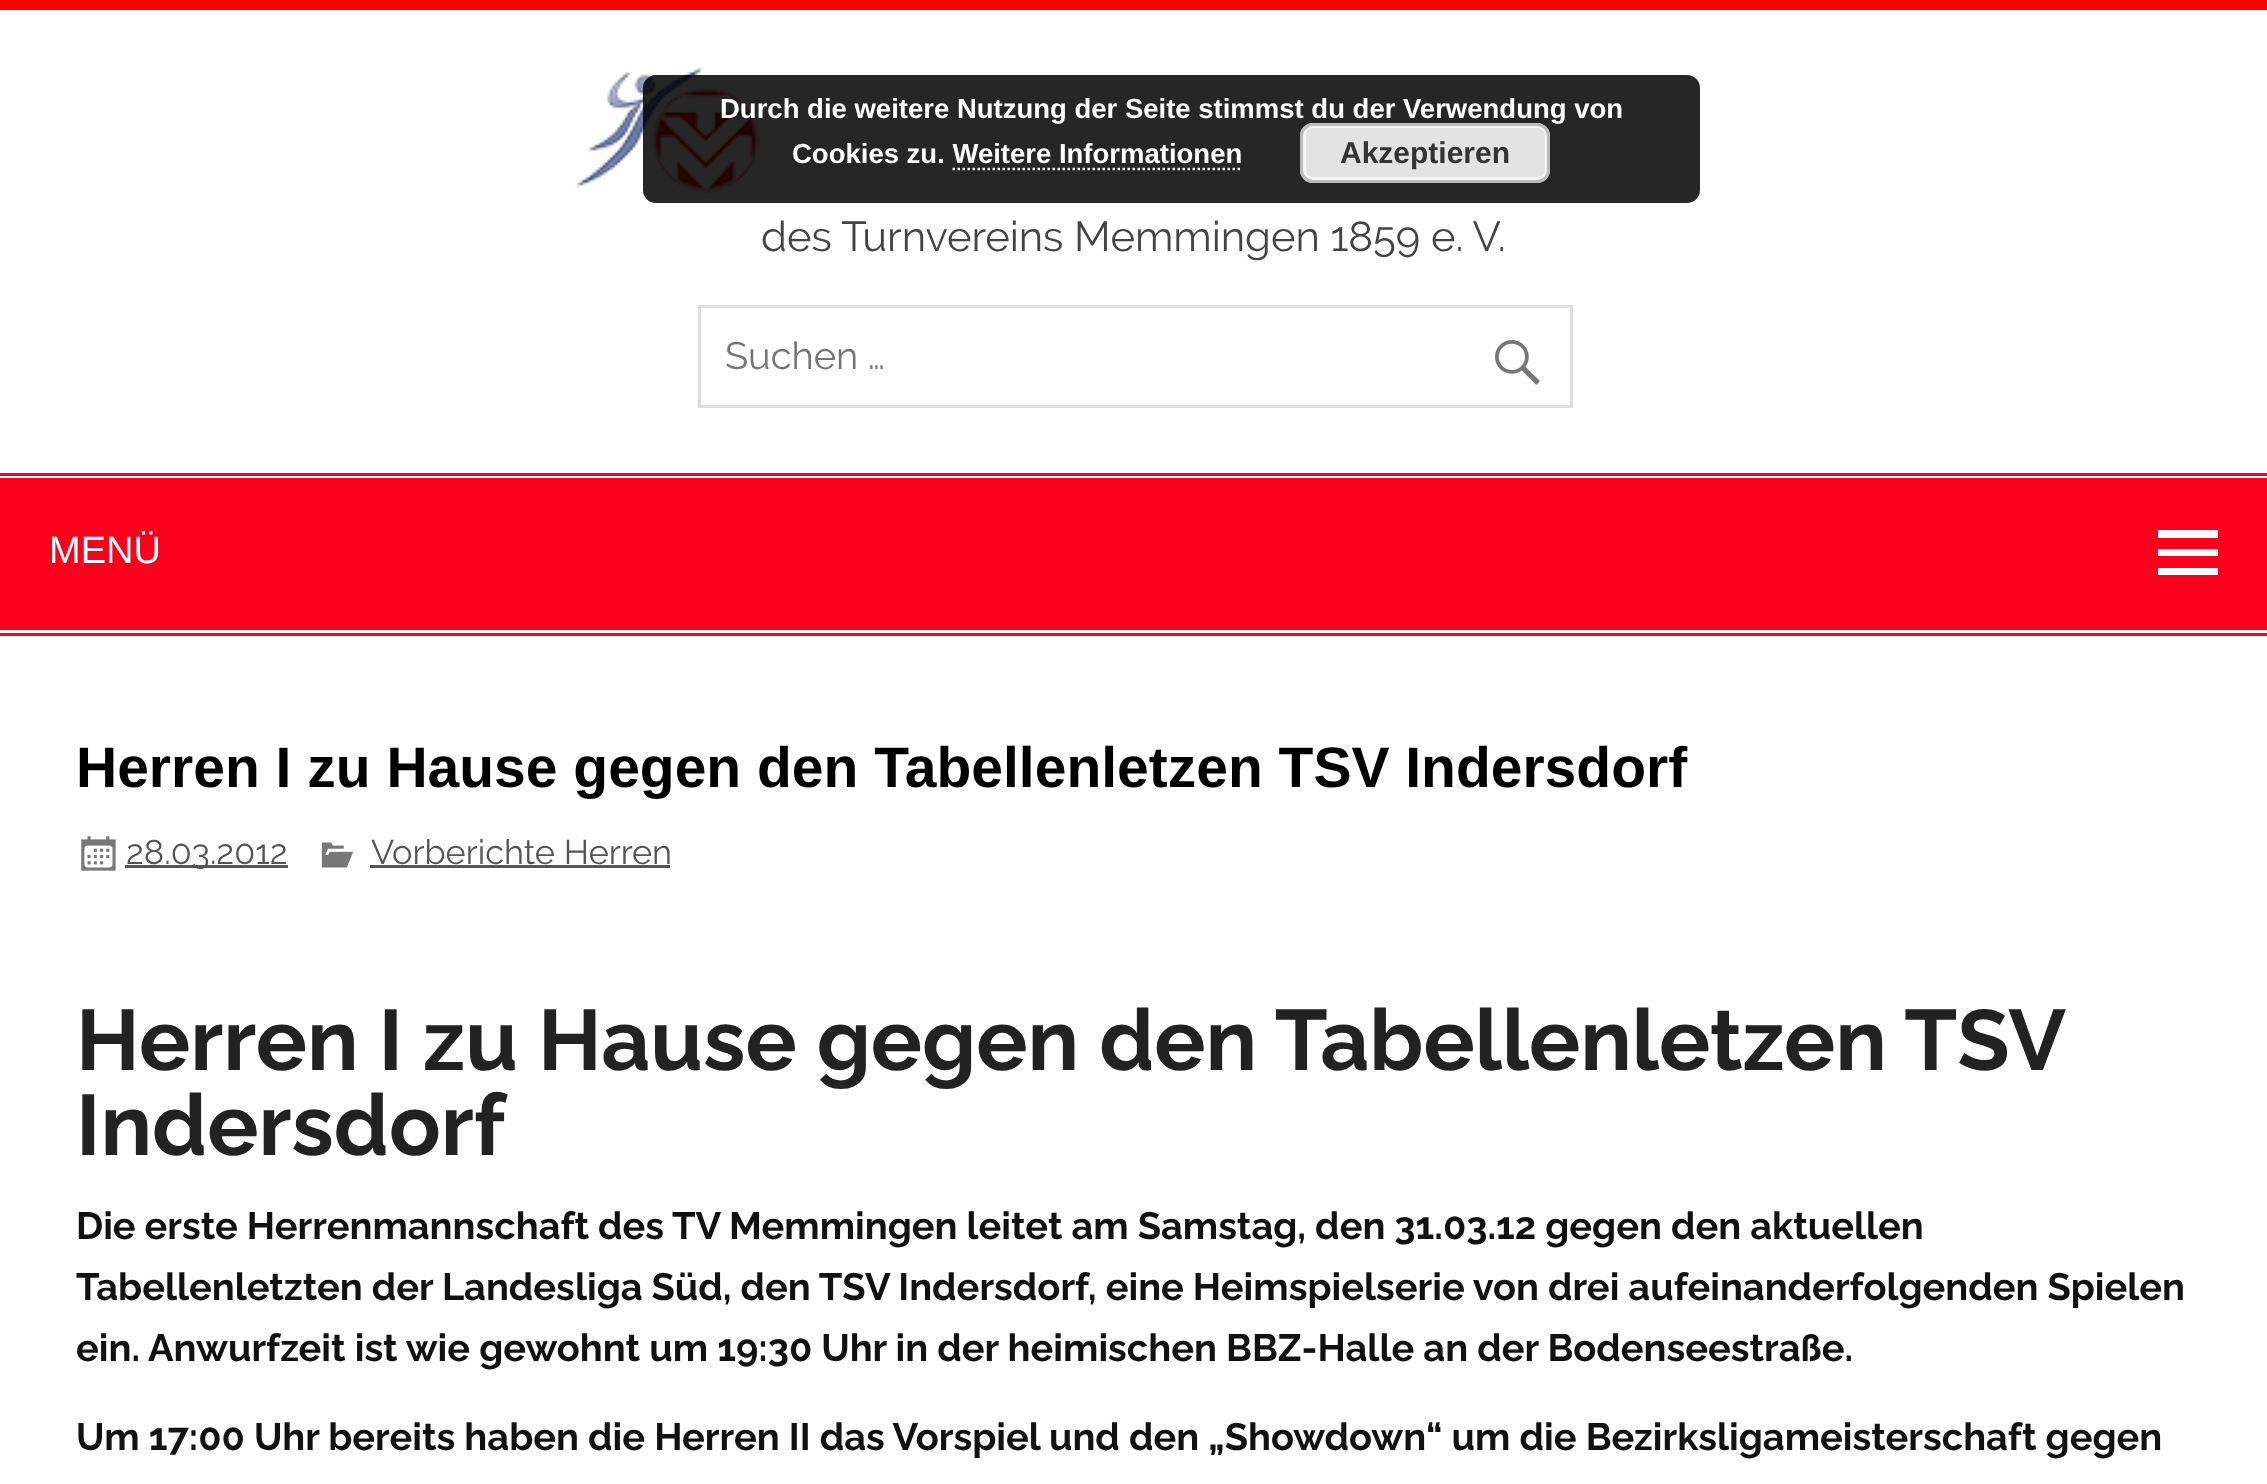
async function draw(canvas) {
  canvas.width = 2267;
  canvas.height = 1484;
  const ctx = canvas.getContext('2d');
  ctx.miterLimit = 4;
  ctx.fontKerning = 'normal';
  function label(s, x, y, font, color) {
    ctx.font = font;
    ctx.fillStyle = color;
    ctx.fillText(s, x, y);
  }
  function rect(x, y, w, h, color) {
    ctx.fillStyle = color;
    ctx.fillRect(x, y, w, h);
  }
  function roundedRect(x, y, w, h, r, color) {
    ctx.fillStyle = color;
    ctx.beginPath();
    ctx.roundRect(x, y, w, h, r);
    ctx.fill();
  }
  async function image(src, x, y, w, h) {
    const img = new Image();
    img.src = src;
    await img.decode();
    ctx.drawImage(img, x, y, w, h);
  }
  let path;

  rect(0, 0, 2267, 1484, '#fff');
  await image('assets/img1.png', 575, 67, 185, 126);
  roundedRect(643, 75, 1057, 128, 13, '#000000d9');
  label('Durch die weitere Nutzung der Seite stimmst du der Verwendung von', 720, 118, 'bold 27.5px Liberation Sans', '#fff');
  label('Cookies zu. Weitere Informationen', 792, 163, 'bold 27.5px Liberation Sans', '#fff');
  roundedRect(1300, 123, 250, 60, 13, '#e3e3e3');
  ctx.beginPath();
  ctx.roundRect(1304.5, 126.5, 242, 52, 8.5);
  ctx.strokeStyle = '#f6f6f6';
  ctx.lineWidth = 3;
  ctx.stroke();
  ctx.beginPath();
  ctx.roundRect(1301.5, 124.5, 247, 57, 11.5);
  ctx.strokeStyle = '#bbb';
  ctx.stroke();
  label('Akzeptieren', 1340, 163, 'bold 30px Liberation Sans', '#333');
  path = new Path2D('M952.5 169H1242.5');
  ctx.strokeStyle = '#fff';
  ctx.lineWidth = 2.5;
  ctx.setLineDash([2.5, 2.5]);
  ctx.stroke(path);
  rect(0, 0, 2267, 10, '#f00');
  label('des Turnvereins Memmingen 1859 e. V.', 761, 251, '41.75px Raleway', '#444');
  ctx.strokeStyle = '#ddd';
  ctx.lineWidth = 3;
  ctx.setLineDash([]);
  ctx.strokeRect(699.5, 306.5, 872, 100);
  label('Suchen …', 725, 369, '38px Raleway', '#757575');
  await image('assets/img2.png', 1495, 340, 45, 45);
  rect(0, 473, 2267, 3, '#fa001c');
  rect(0, 633, 2267, 3, '#fa001c');
  rect(0, 478, 2267, 152, '#fa001c');
  label('MENÜ', 49, 563, '38px Liberation Sans', '#fff');
  path = new Path2D('M2158 575V568H2218V575ZM2158 530H2218V538H2158ZM2158 556V549H2218V556Z');
  ctx.fill(path);
  label('Herren I zu Hause gegen den Tabellenletzen TSV Indersdorf', 76, 787, 'bold 57px Liberation Sans', '#000');
  await image('assets/img3.png', 81, 836, 35, 35);
  rect(125, 865, 163, 3, '#555');
  label('28.03.2012', 126, 864, '34.25px Raleway', '#555');
  await image('assets/img4.png', 321, 842, 32, 26);
  label('Vorberichte Herren', 371, 864, '34.25px Raleway', '#555');
  rect(370, 865, 300, 3, '#555');
  ctx.wordSpacing = '-0.5px';
  label('Herren I zu Hause gegen den Tabellenletzen TSV', 76, 1070, 'bold 85.5px Raleway', '#222');
  ctx.wordSpacing = '0px';
  label('Indersdorf', 76, 1155, 'bold 85.5px Raleway', '#222');
  ctx.wordSpacing = '-0.1px';
  label('Die erste Herrenmannschaft des TV Memmingen leitet am Samstag, den 31.03.12 gegen den aktuellen', 76, 1239, 'bold 38px Raleway', '#111');
  label('Tabellenletzten der Landesliga Süd, den TSV Indersdorf, eine Heimspielserie von drei aufeinanderfolgenden Spielen', 76, 1300, 'bold 38px Raleway', '#111');
  ctx.wordSpacing = '0px';
  label('ein. Anwurfzeit ist wie gewohnt um 19:30 Uhr in der heimischen BBZ-Halle an der Bodenseestraße.', 76, 1361, 'bold 38px Raleway', '#111');
  label('Um 17:00 Uhr bereits haben die Herren II das Vorspiel und den „Showdown“ um die Bezirksligameisterschaft gegen', 76, 1450, 'bold 38px Raleway', '#111');
}

draw(document.querySelector('canvas'));
